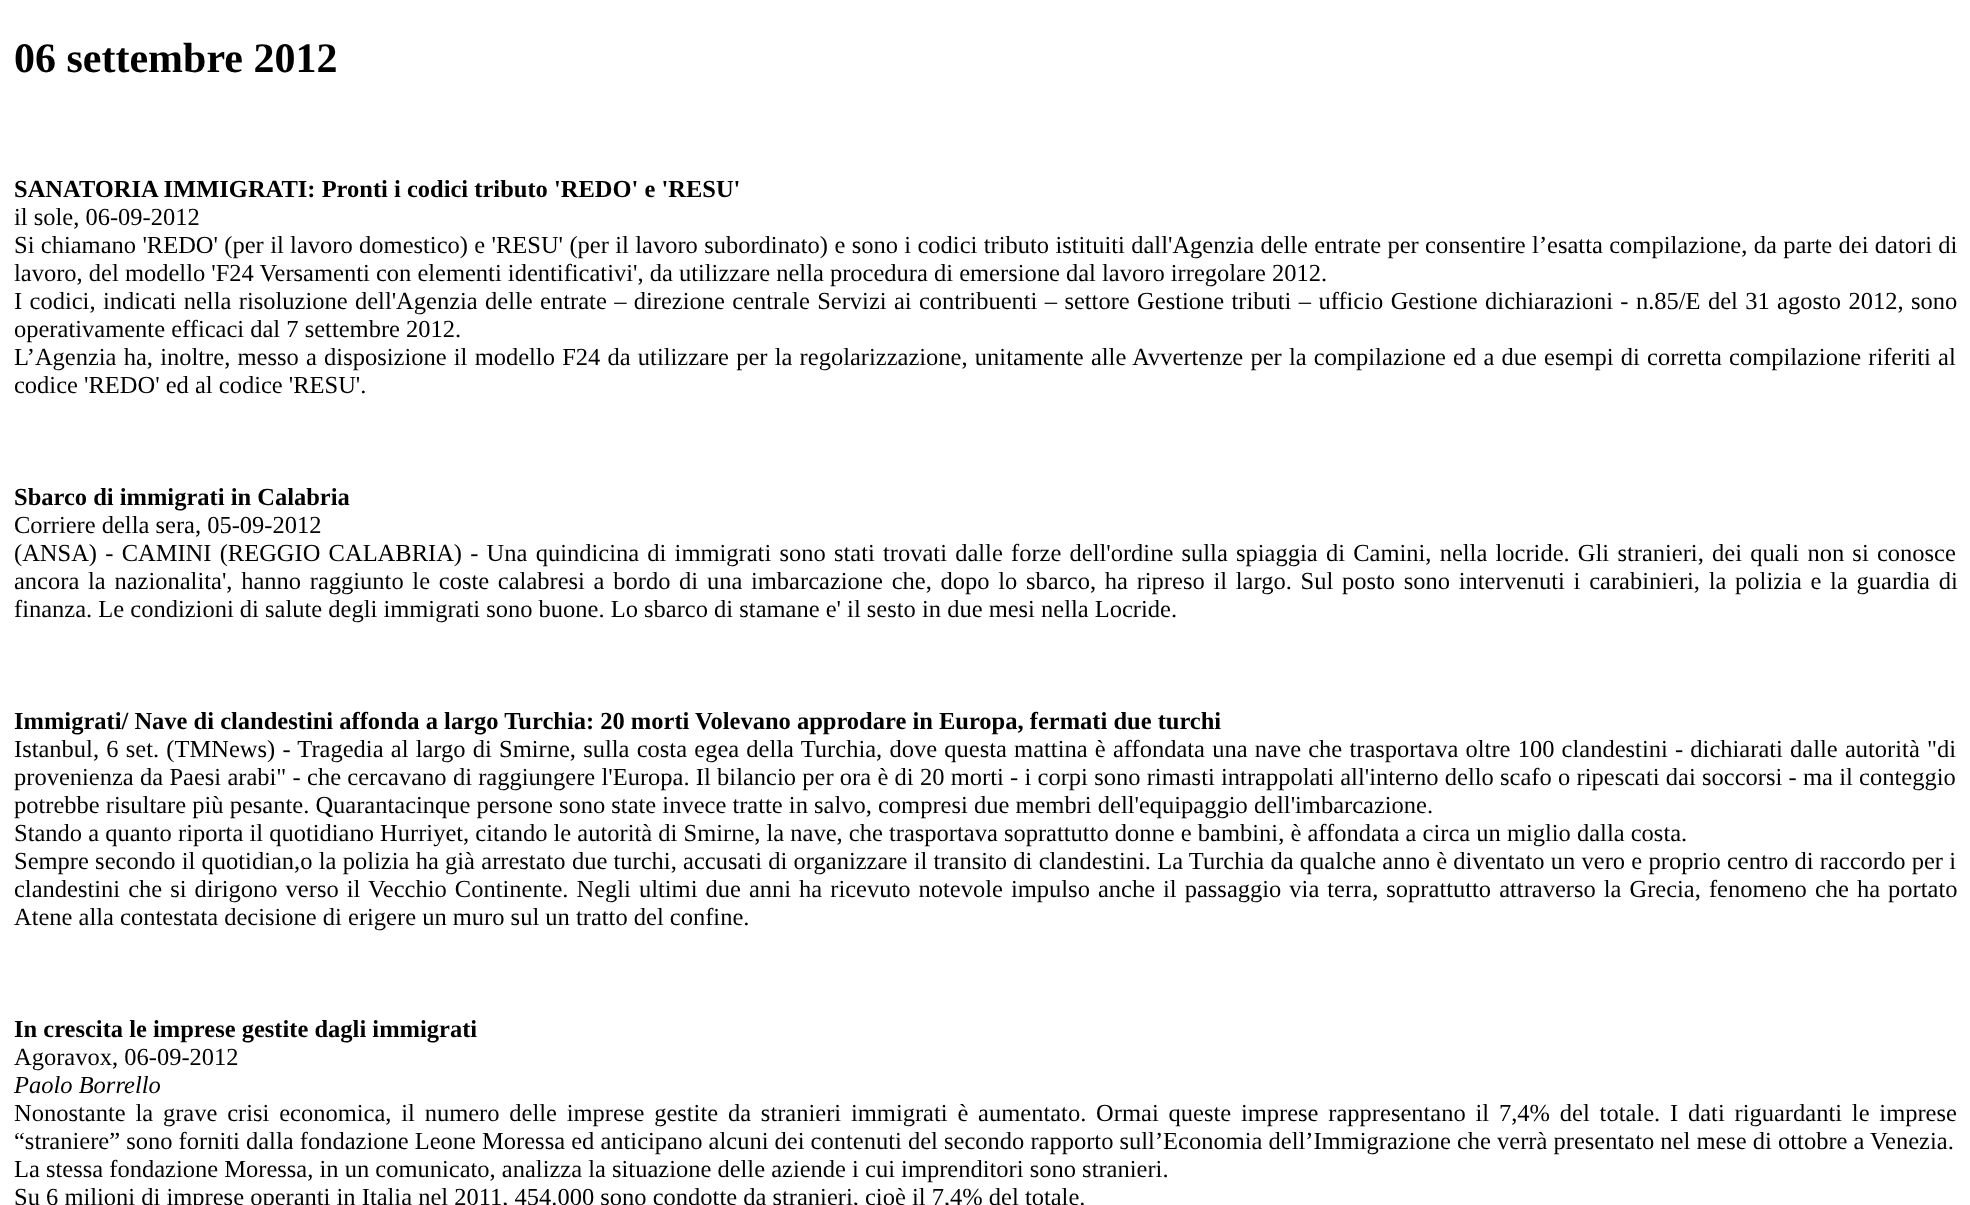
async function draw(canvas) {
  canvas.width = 1970;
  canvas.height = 1205;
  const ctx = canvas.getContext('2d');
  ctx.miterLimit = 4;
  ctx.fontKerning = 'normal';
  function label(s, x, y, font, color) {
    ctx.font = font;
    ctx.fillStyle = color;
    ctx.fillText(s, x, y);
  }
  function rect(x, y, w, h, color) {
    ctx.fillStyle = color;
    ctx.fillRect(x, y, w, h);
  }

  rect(0, 0, 1970, 1205, '#fff');
  label('06 settembre 2012', 14, 72, 'bold 42px Liberation Serif', '#000');
  label('SANATORIA IMMIGRATI: Pronti i codici tributo \'REDO\' e \'RESU\'', 14, 197, 'bold 24.5px Liberation Serif', '#000');
  label('il sole, 06-09-2012', 14, 225, '24.5px Liberation Serif', '#000');
  ctx.wordSpacing = '0.25px';
  label('Si chiamano \'REDO\' (per il lavoro domestico) e \'RESU\' (per il lavoro subordinato) e sono i codici tributo istituiti dall\'Agenzia delle entrate per consentire l’esatta compilazione, da parte dei datori di', 14, 253, '24.5px Liberation Serif', '#000');
  ctx.wordSpacing = '0px';
  label('lavoro, del modello \'F24 Versamenti con elementi identificativi\', da utilizzare nella procedura di emersione dal lavoro irregolare 2012.', 14, 281, '24.5px Liberation Serif', '#000');
  ctx.wordSpacing = '1.25px';
  label('I codici, indicati nella risoluzione dell\'Agenzia delle entrate – direzione centrale Servizi ai contribuenti – settore Gestione tributi – ufficio Gestione dichiarazioni - n.85/E del 31 agosto 2012, sono', 14, 309, '24.5px Liberation Serif', '#000');
  ctx.wordSpacing = '0px';
  label('operativamente efficaci dal 7 settembre 2012.', 14, 337, '24.5px Liberation Serif', '#000');
  ctx.wordSpacing = '1.1px';
  label('L’Agenzia ha, inoltre, messo a disposizione il modello F24 da utilizzare per la regolarizzazione, unitamente alle Avvertenze per la compilazione ed a due esempi di corretta compilazione riferiti al', 14, 365, '24.5px Liberation Serif', '#000');
  ctx.wordSpacing = '0px';
  label('codice \'REDO\' ed al codice \'RESU\'.', 14, 393, '24.5px Liberation Serif', '#000');
  label('Sbarco di immigrati in Calabria', 14, 505, 'bold 24.5px Liberation Serif', '#000');
  label('Corriere della sera, 05-09-2012', 14, 533, '24.5px Liberation Serif', '#000');
  ctx.wordSpacing = '2.1px';
  label('(ANSA) - CAMINI (REGGIO CALABRIA) - Una quindicina di immigrati sono stati trovati dalle forze dell\'ordine sulla spiaggia di Camini, nella locride. Gli stranieri, dei quali non si conosce', 14, 561, '24.5px Liberation Serif', '#000');
  ctx.wordSpacing = '2.6px';
  label('ancora la nazionalita\', hanno raggiunto le coste calabresi a bordo di una imbarcazione che, dopo lo sbarco, ha ripreso il largo. Sul posto sono intervenuti i carabinieri, la polizia e la guardia di', 14, 589, '24.5px Liberation Serif', '#000');
  ctx.wordSpacing = '0px';
  label('finanza. Le condizioni di salute degli immigrati sono buone. Lo sbarco di stamane e\' il sesto in due mesi nella Locride.', 14, 617, '24.5px Liberation Serif', '#000');
  label('Immigrati/ Nave di clandestini affonda a largo Turchia: 20 morti Volevano approdare in Europa, fermati due turchi', 14, 729, 'bold 24.5px Liberation Serif', '#000');
  ctx.wordSpacing = '1.1px';
  label('Istanbul, 6 set. (TMNews) - Tragedia al largo di Smirne, sulla costa egea della Turchia, dove questa mattina è affondata una nave che trasportava oltre 100 clandestini - dichiarati dalle autorità "di', 14, 757, '24.5px Liberation Serif', '#000');
  ctx.wordSpacing = '0.15px';
  label('provenienza da Paesi arabi" - che cercavano di raggiungere l\'Europa. Il bilancio per ora è di 20 morti - i corpi sono rimasti intrappolati all\'interno dello scafo o ripescati dai soccorsi - ma il conteggio', 14, 785, '24.5px Liberation Serif', '#000');
  ctx.wordSpacing = '0px';
  label('potrebbe risultare più pesante. Quarantacinque persone sono state invece tratte in salvo, compresi due membri dell\'equipaggio dell\'imbarcazione.', 14, 813, '24.5px Liberation Serif', '#000');
  label('Stando a quanto riporta il quotidiano Hurriyet, citando le autorità di Smirne, la nave, che trasportava soprattutto donne e bambini, è affondata a circa un miglio dalla costa.', 14, 841, '24.5px Liberation Serif', '#000');
  ctx.wordSpacing = '0.15px';
  label('Sempre secondo il quotidian,o la polizia ha già arrestato due turchi, accusati di organizzare il transito di clandestini. La Turchia da qualche anno è diventato un vero e proprio centro di raccordo per i', 14, 869, '24.5px Liberation Serif', '#000');
  ctx.wordSpacing = '1.9px';
  label('clandestini che si dirigono verso il Vecchio Continente. Negli ultimi due anni ha ricevuto notevole impulso anche il passaggio via terra, soprattutto attraverso la Grecia, fenomeno che ha portato', 14, 897, '24.5px Liberation Serif', '#000');
  ctx.wordSpacing = '0px';
  label('Atene alla contestata decisione di erigere un muro sul un tratto del confine.', 14, 925, '24.5px Liberation Serif', '#000');
  label('In crescita le imprese gestite dagli immigrati', 14, 1037, 'bold 24.5px Liberation Serif', '#000');
  label('Agoravox, 06-09-2012', 14, 1065, '24.5px Liberation Serif', '#000');
  label('Paolo Borrello', 14, 1093, 'italic 24.5px Liberation Serif', '#000');
  ctx.wordSpacing = '3.7px';
  label('Nonostante la grave crisi economica, il numero delle imprese gestite da stranieri immigrati è aumentato. Ormai queste imprese rappresentano il 7,4% del totale. I dati riguardanti le imprese', 14, 1121, '24.5px Liberation Serif', '#000');
  ctx.wordSpacing = '0px';
  label('“straniere” sono forniti dalla fondazione Leone Moressa ed anticipano alcuni dei contenuti del secondo rapporto sull’Economia dell’Immigrazione che verrà presentato nel mese di ottobre a Venezia.', 14, 1149, '24.5px Liberation Serif', '#000');
  label('La stessa fondazione Moressa, in un comunicato, analizza la situazione delle aziende i cui imprenditori sono stranieri.', 14, 1177, '24.5px Liberation Serif', '#000');
  label('Su 6 milioni di imprese operanti in Italia nel 2011, 454.000 sono condotte da stranieri, cioè il 7,4% del totale.', 14, 1205, '24.5px Liberation Serif', '#000');
}

draw(document.querySelector('canvas'));
